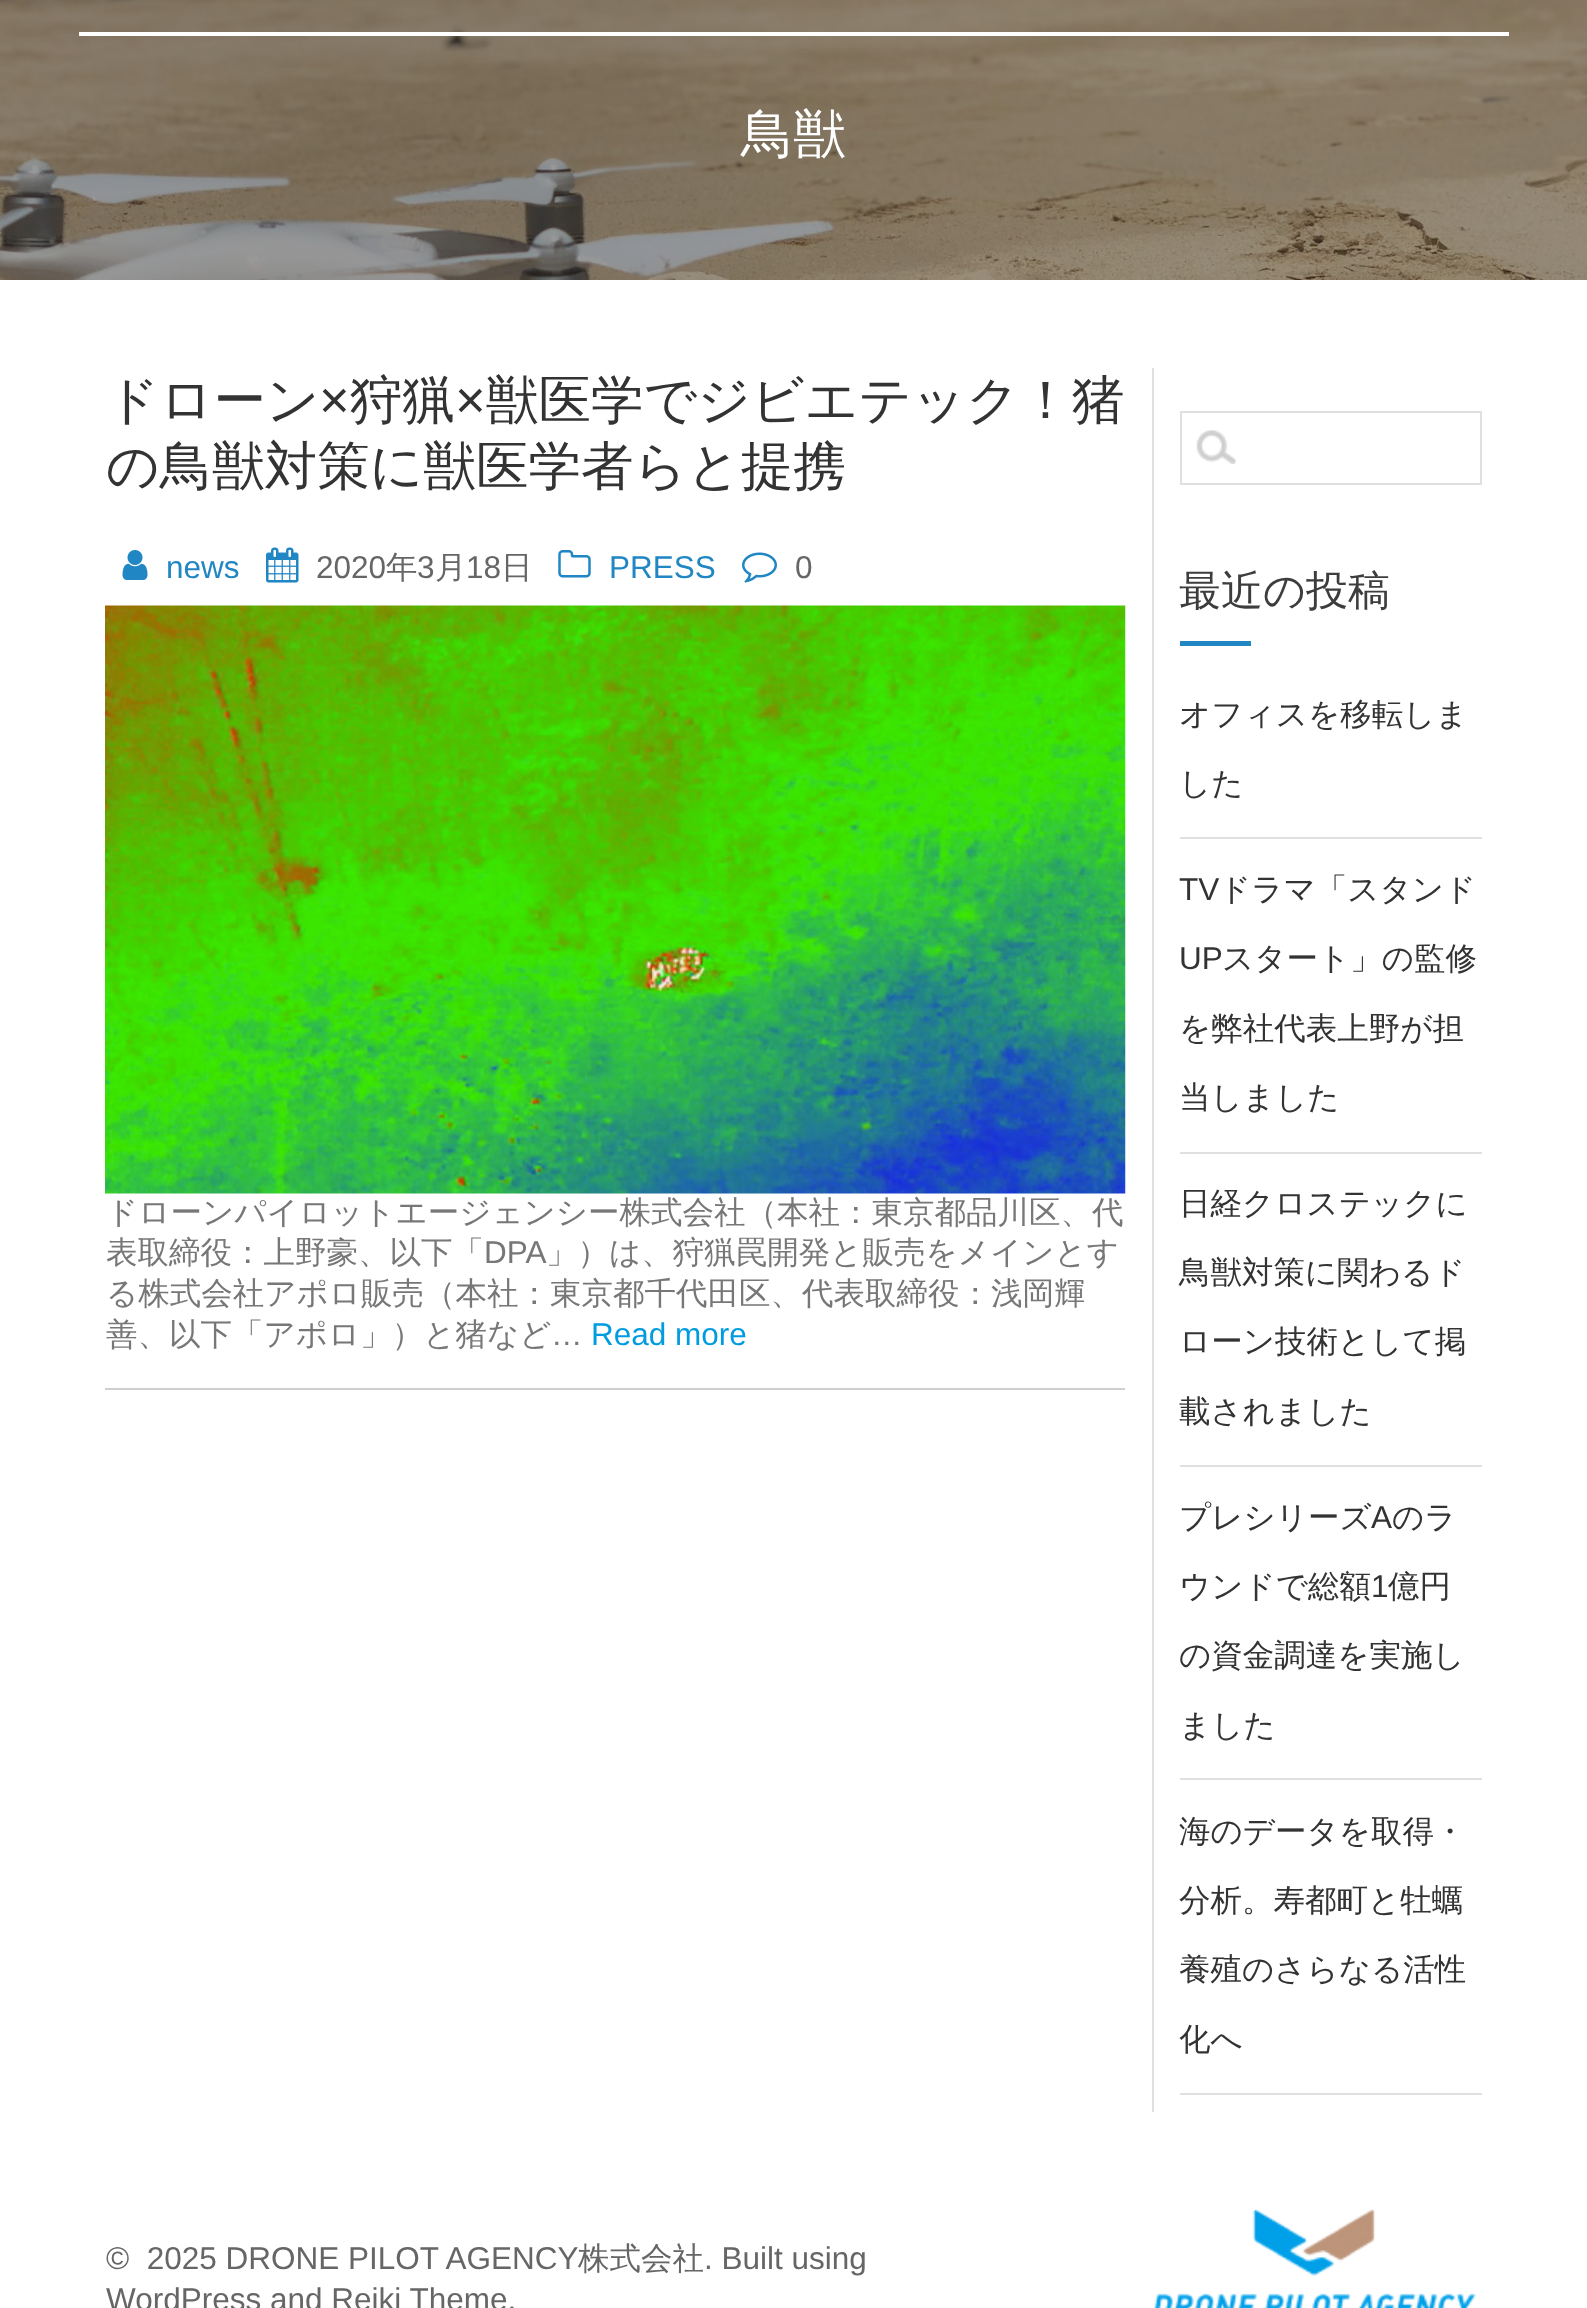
async function draw(canvas) {
  canvas.width = 1587;
  canvas.height = 2308;
  const ctx = canvas.getContext('2d');
  ctx.miterLimit = 4;
  ctx.fontKerning = 'normal';
  function label(s, x, y, font, color) {
    ctx.font = font;
    ctx.fillStyle = color;
    ctx.fillText(s, x, y);
  }
  function rect(x, y, w, h, color) {
    ctx.fillStyle = color;
    ctx.fillRect(x, y, w, h);
  }
  async function image(src, x, y, w, h) {
    const img = new Image();
    img.src = src;
    await img.decode();
    ctx.drawImage(img, x, y, w, h);
  }

  rect(0, 0, 1587, 2308, '#fff');
  await image('assets/img1.png', 0, 0, 1587, 280);
  rect(79, 32, 1430, 4, '#fff');
  label('鳥獣', 741, 152, '500 52.5px WenQuanYi Zen Hei', '#fff');
  rect(105, 1388, 1020, 2, '#cfcfcf');
  label('ドローン', 106, 418, '500 52.5px WenQuanYi Zen Hei', '#333');
  label('×', 319, 418, '52.5px Liberation Sans', '#333');
  label('狩猟', 350, 418, '500 52.5px WenQuanYi Zen Hei', '#333');
  label('×', 455, 418, '52.5px Liberation Sans', '#333');
  label('獣医学でジビエテック！猪', 486, 418, '500 52.5px WenQuanYi Zen Hei', '#333');
  label('の鳥獣対策に獣医学者らと提携', 106, 484, '500 52.5px WenQuanYi Zen Hei', '#333');
  await image('assets/img2.png', 122, 550, 26, 30);
  label('news', 166, 578, '31.5px Liberation Sans', '#2186c4');
  await image('assets/img3.png', 266, 547, 33, 36);
  label('2020', 316, 578, '31.5px Liberation Sans', '#666');
  label('年', 386, 578, '500 31.5px WenQuanYi Zen Hei', '#666');
  label('3', 417, 578, '31.5px Liberation Sans', '#666');
  label('月', 435, 578, '500 31.5px WenQuanYi Zen Hei', '#666');
  label('18', 466, 578, '31.5px Liberation Sans', '#666');
  label('日', 501, 578, '500 31.5px WenQuanYi Zen Hei', '#666');
  await image('assets/img4.png', 558, 550, 33, 28);
  label('PRESS', 609, 578, '31.5px Liberation Sans', '#2186c4');
  await image('assets/img5.png', 742, 552, 35, 31);
  label('0', 795, 578, '31.5px Liberation Sans', '#666');
  await image('assets/img6.png', 105, 605, 1021, 589);
  label('ドローンパイロットエージェンシー株式会社（本社：東京都品川区、代', 106, 1223, '500 31.5px WenQuanYi Zen Hei', '#777');
  label('表取締役：上野豪、以下「', 106, 1263, '500 31.5px WenQuanYi Zen Hei', '#777');
  label('DPA', 484, 1263, '31.5px Liberation Sans', '#777');
  label('」）は、狩猟罠開発と販売をメインとす', 546, 1263, '500 31.5px WenQuanYi Zen Hei', '#777');
  label('る株式会社アポロ販売（本社：東京都千代田区、代表取締役：浅岡輝', 106, 1304, '500 31.5px WenQuanYi Zen Hei', '#777');
  label('善、以下「アポロ」）と猪など', 106, 1345, '500 31.5px WenQuanYi Zen Hei', '#777');
  label('…', 551, 1345, '31.5px Liberation Sans', '#777');
  label('Read more', 591, 1345, '31.5px Liberation Sans', '#009cdf');
  rect(1152, 368, 2, 1744, '#e0e0e0');
  await image('assets/img7.png', 1196, 430, 40, 34);
  ctx.strokeStyle = '#e0e0e0';
  ctx.lineWidth = 2;
  ctx.strokeRect(1181, 412, 300, 72);
  label('最近の投稿', 1179, 605, '500 42px WenQuanYi Zen Hei', '#3d3d3d');
  rect(1180, 641, 71, 5, '#2186c4');
  rect(1180, 837, 302, 2, '#e0e0e0');
  label('オフィスを移転しま', 1179, 725, '500 31.5px WenQuanYi Zen Hei', '#333');
  label('した', 1179, 794, '500 31.5px WenQuanYi Zen Hei', '#333');
  rect(1180, 1152, 302, 2, '#e0e0e0');
  label('TV', 1179, 900, '31.5px Liberation Sans', '#333');
  label('ドラマ「スタンド', 1219, 900, '500 31.5px WenQuanYi Zen Hei', '#333');
  label('UP', 1179, 969, '31.5px Liberation Sans', '#333');
  label('スタート」の監修', 1222, 969, '500 31.5px WenQuanYi Zen Hei', '#333');
  label('を弊社代表上野が担', 1179, 1039, '500 31.5px WenQuanYi Zen Hei', '#333');
  label('当しました', 1179, 1108, '500 31.5px WenQuanYi Zen Hei', '#333');
  rect(1180, 1465, 302, 2, '#e0e0e0');
  label('日経クロステックに', 1179, 1214, '500 31.5px WenQuanYi Zen Hei', '#333');
  label('鳥獣対策に関わるド', 1179, 1283, '500 31.5px WenQuanYi Zen Hei', '#333');
  label('ローン技術として掲', 1179, 1352, '500 31.5px WenQuanYi Zen Hei', '#333');
  label('載されました', 1179, 1422, '500 31.5px WenQuanYi Zen Hei', '#333');
  rect(1180, 1778, 302, 2, '#e0e0e0');
  label('プレシリーズ', 1179, 1528, '500 31.5px WenQuanYi Zen Hei', '#333');
  label('A', 1371, 1528, '31.5px Liberation Sans', '#333');
  label('のラ', 1392, 1528, '500 31.5px WenQuanYi Zen Hei', '#333');
  label('ウンドで総額', 1179, 1597, '500 31.5px WenQuanYi Zen Hei', '#333');
  label('1', 1371, 1597, '31.5px Liberation Sans', '#333');
  label('億円', 1388, 1597, '500 31.5px WenQuanYi Zen Hei', '#333');
  label('の資金調達を実施し', 1179, 1666, '500 31.5px WenQuanYi Zen Hei', '#333');
  label('ました', 1179, 1736, '500 31.5px WenQuanYi Zen Hei', '#333');
  rect(1180, 2093, 302, 2, '#e0e0e0');
  label('海のデータを取得・', 1179, 1842, '500 31.5px WenQuanYi Zen Hei', '#333');
  label('分析。寿都町と牡蠣', 1179, 1911, '500 31.5px WenQuanYi Zen Hei', '#333');
  label('養殖のさらなる活性', 1179, 1980, '500 31.5px WenQuanYi Zen Hei', '#333');
  label('化へ', 1179, 2050, '500 31.5px WenQuanYi Zen Hei', '#333');
  label('©  2025 DRONE PILOT AGENCY', 106, 2269, '31.5px Liberation Sans', '#666');
  label('株式会社', 578, 2269, '500 31.5px WenQuanYi Zen Hei', '#666');
  label('. Built using', 704, 2269, '31.5px Liberation Sans', '#666');
  label('WordPress and Reiki Theme.', 106, 2310, '31.5px Liberation Sans', '#666');
  await image('assets/img8.png', 1154, 2209, 322, 99);
}

draw(document.querySelector('canvas'));
